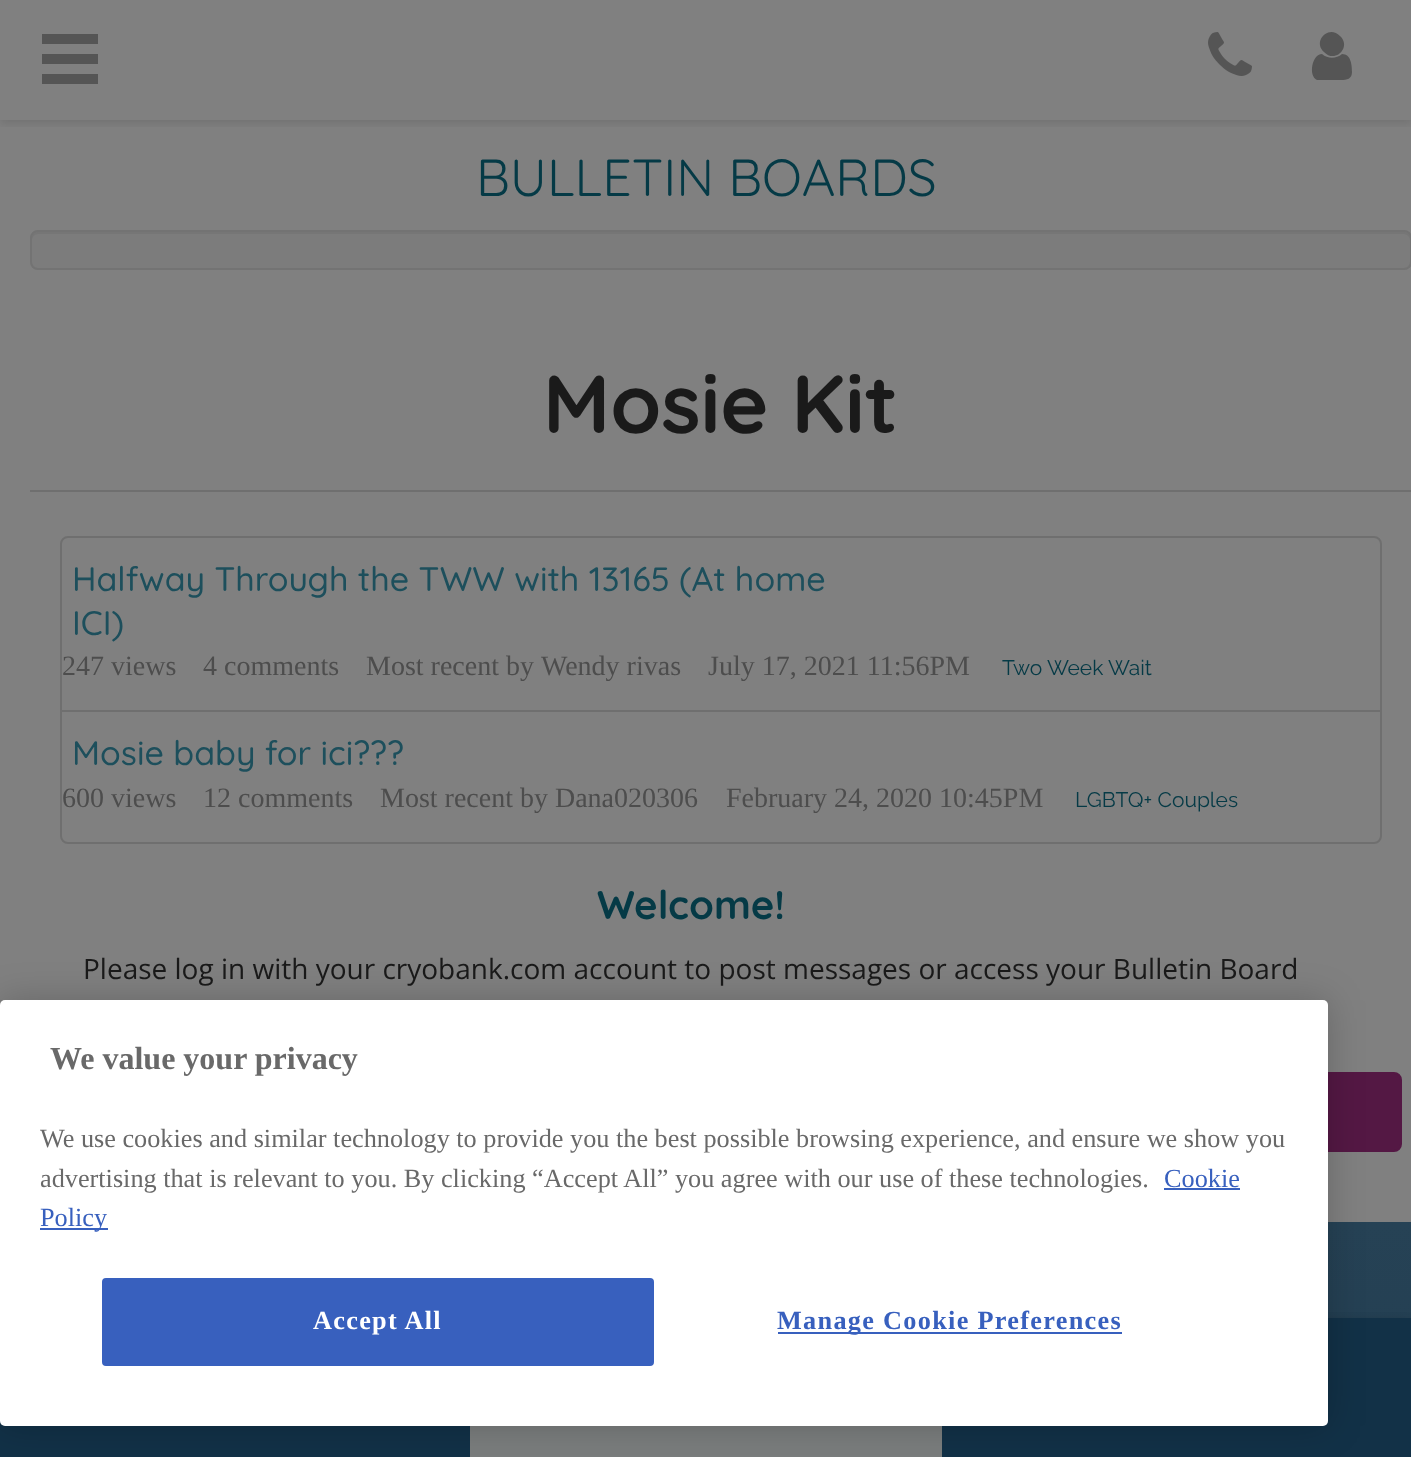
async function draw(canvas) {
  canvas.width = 1411;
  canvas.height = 1457;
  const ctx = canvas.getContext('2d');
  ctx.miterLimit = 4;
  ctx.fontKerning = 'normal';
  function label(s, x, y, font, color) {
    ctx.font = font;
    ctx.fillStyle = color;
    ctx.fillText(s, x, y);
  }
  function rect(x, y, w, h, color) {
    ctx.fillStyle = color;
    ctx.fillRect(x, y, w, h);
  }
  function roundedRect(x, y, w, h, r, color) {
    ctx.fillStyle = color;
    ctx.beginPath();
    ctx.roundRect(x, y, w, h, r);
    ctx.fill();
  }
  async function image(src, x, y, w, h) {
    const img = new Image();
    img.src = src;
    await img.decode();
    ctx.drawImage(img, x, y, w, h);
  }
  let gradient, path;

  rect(0, 0, 1411, 1457, '#808080');
  ctx.save();
  ctx.beginPath();
  ctx.rect(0, 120, 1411, 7);
  ctx.clip();
  ctx.fillStyle = '#0000001a';
  ctx.filter = 'blur(4px)';
  ctx.beginPath();
  ctx.rect(0, 4, 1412, 120);
  ctx.fill();
  ctx.filter = 'none';
  ctx.restore();
  rect(42, 74, 56, 10, '#555');
  rect(42, 54, 56, 10, '#555');
  rect(42, 34, 56, 10, '#555');
  await image('assets/img1.png', 1208, 32, 44, 44);
  path = new Path2D('M1352 72C1352 79 1347 80 1341 80H1317C1308 76 1312 54 1322 54C1328 59 1336 59 1342 54C1351 54 1352 65 1352 72ZM1340 36C1352 47 1335 64 1324 52C1312 41 1329 24 1340 36Z');
  ctx.fill(path);
  label('BULLETIN BOARDS', 476, 196, '300 52px Quicksand', '#053a46');
  roundedRect(30, 230, 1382, 40, 8, '#7c7c7c');
  ctx.fillStyle = '#767676';
  path = new Path2D('M38 234H1404C1407 234 1410 237 1410 240V238C1410 235 1407 232 1404 232H38C35 232 32 235 32 238V240C32 237 35 234 38 234Z');
  ctx.fill(path);
  ctx.beginPath();
  ctx.roundRect(31, 231, 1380, 38, 7);
  ctx.strokeStyle = '#737373';
  ctx.lineWidth = 2;
  ctx.stroke();
  rect(30, 490, 1381, 2, '#6f6f6f');
  label('Mosie Kit', 543, 433, '300 82px "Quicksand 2"', '#1a1a1a');
  ctx.beginPath();
  ctx.roundRect(61, 537, 1320, 174, [7, 7, 0, 0]);
  ctx.strokeStyle = '#6f6f6f';
  ctx.stroke();
  label('Halfway Through the TWW with 13165 (At home', 72, 591, '300 34px "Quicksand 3"', '#1d4f5c');
  label('ICI)', 72, 635, '300 34px "Quicksand 3"', '#1d4f5c');
  label('247 views', 62, 675, '28px Liberation Serif', '#4d4d4d');
  label('4 comments', 203, 675, '28px Liberation Serif', '#4d4d4d');
  label('Most recent by', 366, 675, '28px Liberation Serif', '#4d4d4d');
  label('Wendy rivas', 541, 675, '28px Liberation Serif', '#4d4d4d');
  label('July 17, 2021 11:56PM', 708, 675, '28px Liberation Serif', '#4d4d4d');
  label('Two Week Wait', 1002, 675, '100 21px Raleway', '#053a46');
  ctx.fillStyle = '#808080';
  ctx.beginPath();
  ctx.roundRect(61, 711, 1320, 132, [0, 0, 7, 7]);
  ctx.fill();
  ctx.stroke();
  label('Mosie baby for ici???', 72, 765, '300 34px "Quicksand 3"', '#1d4f5c');
  label('600 views', 62, 807, '28px Liberation Serif', '#4d4d4d');
  label('12 comments', 203, 807, '28px Liberation Serif', '#4d4d4d');
  label('Most recent by Dana020306', 380, 807, '28px Liberation Serif', '#4d4d4d');
  label('February 24, 2020 10:45PM', 726, 807, '28px Liberation Serif', '#4d4d4d');
  label('LGBTQ+ Couples', 1075, 807, '100 21px Raleway', '#053a46');
  label('Welcome!', 597, 919, '300 40px "Quicksand 2"', '#053a46');
  label('Please log in with your cryobank.com account to post messages or access your Bulletin Board', 83, 979, '28px Open Sans', '#1a1a1a');
  ctx.fillStyle = '#541844';
  ctx.beginPath();
  ctx.roundRect(21, 1073, 1380, 78, 7);
  ctx.fill();
  ctx.strokeStyle = '#541844';
  ctx.stroke();
  gradient = ctx.createLinearGradient(706, 1222, 706, 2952);
  gradient.addColorStop(0, '#264255');
  gradient.addColorStop(0.99, '#112940');
  ctx.fillStyle = gradient;
  ctx.fillRect(1328, 1222, 83, 96);
  ctx.fillStyle = '#0000003b';
  ctx.filter = 'blur(6px)';
  ctx.beginPath();
  ctx.rect(0, 1324, 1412, 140);
  ctx.fill();
  ctx.filter = 'none';
  ctx.fillStyle = '#00000029';
  ctx.filter = 'blur(6px)';
  ctx.beginPath();
  ctx.rect(0, 1324, 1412, 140);
  ctx.fill();
  ctx.filter = 'none';
  rect(0, 1421, 470, 36, '#123147');
  rect(470, 1426, 472, 31, '#7a7d7d');
  rect(942, 1318, 469, 139, '#123147');
  ctx.fillStyle = '#00000033';
  ctx.filter = 'blur(18px)';
  ctx.beginPath();
  ctx.roundRect(0, 1000, 1328, 426, 5);
  ctx.fill();
  ctx.filter = 'none';
  roundedRect(0, 1000, 1328, 426, 5, '#fff');
  label('We value your privacy', 50, 1069, 'bold 32px Liberation Serif', '#696969');
  label('We use cookies and similar technology to provide you the best possible browsing experience, and ensure we show you', 40, 1147, '26.25px Liberation Serif', '#696969');
  label('advertising that is relevant to you. By clicking “Accept All” you agree with our use of these technologies.', 40, 1187, '26.25px Liberation Serif', '#696969');
  label('Cookie', 1164, 1187, '26.25px Liberation Serif', '#3860be');
  rect(1164, 1188, 76, 2, '#3860be');
  rect(40, 1228, 68, 2, '#3860be');
  label('Policy', 40, 1226, '26.25px Liberation Serif', '#3860be');
  ctx.beginPath();
  ctx.roundRect(103, 1279, 550, 86, 3);
  ctx.fill();
  ctx.strokeStyle = '#3860be';
  ctx.stroke();
  ctx.letterSpacing = '1.3px';
  label('Accept All', 313, 1329, 'bold 26.25px Liberation Serif', '#fff');
  rect(778, 1332, 344, 2, '#3860be');
  label('Manage Cookie Preferences', 777, 1329, 'bold 26.25px Liberation Serif', '#3860be');
}

draw(document.querySelector('canvas'));
